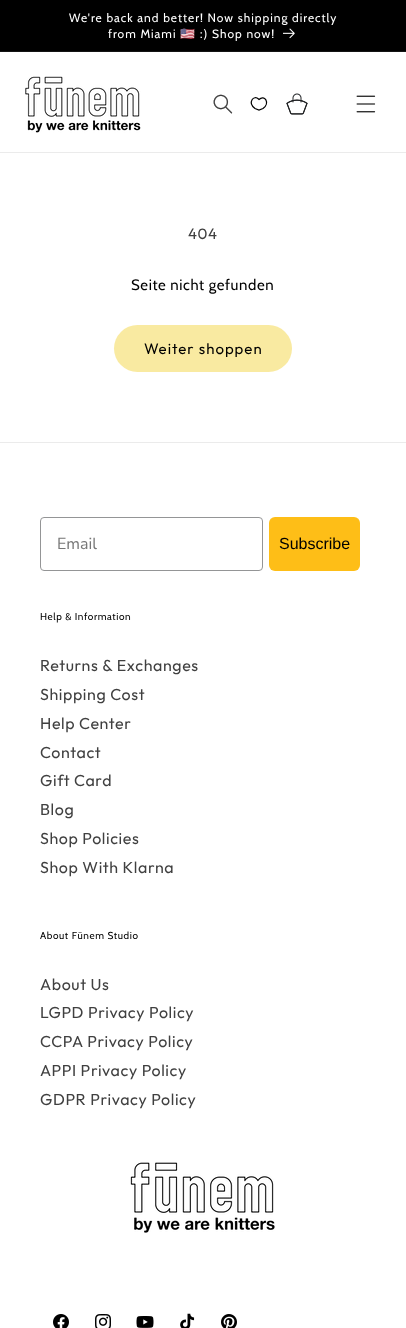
async function draw(canvas) {
  canvas.width = 406;
  canvas.height = 1328;
  const ctx = canvas.getContext('2d');
  ctx.miterLimit = 4;
  ctx.fontKerning = 'normal';
  function label(s, x, y, font, color) {
    ctx.font = font;
    ctx.fillStyle = color;
    ctx.fillText(s, x, y);
  }
  function rect(x, y, w, h, color) {
    ctx.fillStyle = color;
    ctx.fillRect(x, y, w, h);
  }
  function roundedRect(x, y, w, h, r, color) {
    ctx.fillStyle = color;
    ctx.beginPath();
    ctx.roundRect(x, y, w, h, r);
    ctx.fill();
  }
  async function image(src, x, y, w, h) {
    const img = new Image();
    img.src = src;
    await img.decode();
    ctx.drawImage(img, x, y, w, h);
  }
  let path;

  rect(0, 0, 406, 1328, '#fff');
  rect(0, 0, 406, 51, '#000');
  rect(0, 51, 406, 1, '#141414');
  ctx.letterSpacing = '1px';
  label('We\'re back and better! Now shipping directly', 69, 22, '12px Cabin', '#fff');
  label('from Miami', 108, 38, '12px Cabin', '#fff');
  label('🇺🇸', 180, 38, '12px Noto Color Emoji', '#fff');
  label(':) Shop now!', 200, 38, '12px Cabin', '#fff');
  await image('assets/img1.png', 283, 28, 12, 11);
  rect(0, 152, 406, 1, '#ebebeb');
  await image('assets/img2.png', 25, 76, 116, 57);
  await image('assets/img3.png', 213, 94, 20, 20);
  path = new Path2D('M258.5 99L259 99.5C264.5 94 270.5 103 263 108.5L259 110L255 108.5C247 102.5 254 94.5 258.5 99Z');
  ctx.strokeStyle = '#000';
  ctx.lineWidth = 1.2;
  ctx.stroke(path);
  await image('assets/img4.png', 286, 93, 22, 22);
  await image('assets/img5.png', 356, 95, 20, 18);
  ctx.letterSpacing = '0.6px';
  label('404', 188, 239, '15px Outfit', '#404040');
  label('Seite nicht gefunden', 131, 290, '15px Cabin', '#000');
  roundedRect(114, 325, 178, 47, 23.5, '#f9eaa1');
  ctx.letterSpacing = '1px';
  label('Weiter shoppen', 144, 354, '15px Outfit', '#000');
  rect(0, 442, 406, 1, '#ebebeb');
  ctx.beginPath();
  ctx.roundRect(40.5, 517.5, 222, 53, 3.5);
  ctx.strokeStyle = '#949596';
  ctx.lineWidth = 1;
  ctx.stroke();
  ctx.letterSpacing = '0px';
  label('Email', 57, 549, '16px Nunito Sans', '#767676');
  roundedRect(269, 517, 91, 54, 6, '#febe17');
  label('Subscribe', 279, 549, '16px Liberation Sans', '#000');
  ctx.letterSpacing = '0.6px';
  label('Help & Information', 40, 620, '10px Cabin', '#000');
  label('Returns & Exchanges', 40, 671, '16px Outfit', '#404040');
  label('Shipping Cost', 40, 700, '16px Outfit', '#404040');
  label('Help Center', 40, 729, '16px Outfit', '#404040');
  label('Contact', 40, 758, '16px Outfit', '#404040');
  label('Gift Card', 40, 786, '16px Outfit', '#404040');
  label('Blog', 40, 815, '16px Outfit', '#404040');
  label('Shop Policies', 40, 844, '16px Outfit', '#404040');
  label('Shop With Klarna', 40, 873, '16px Outfit', '#404040');
  label('About Fūnem Studio', 40, 939, '10px Cabin', '#000');
  label('About Us', 40, 990, '16px Outfit', '#404040');
  label('LGPD Privacy Policy', 40, 1018, '16px Outfit', '#404040');
  label('CCPA Privacy Policy', 40, 1047, '16px Outfit', '#404040');
  label('APPI Privacy Policy', 40, 1076, '16px Outfit', '#404040');
  label('GDPR Privacy Policy', 40, 1105, '16px Outfit', '#404040');
  await image('assets/img6.png', 130, 1162, 145, 71);
  await image('assets/img7.png', 53, 1314, 16, 14);
  await image('assets/img8.png', 95, 1314, 16, 14);
  await image('assets/img9.png', 136, 1316, 18, 12);
  await image('assets/img10.png', 180, 1313, 15, 15);
  await image('assets/img11.png', 221, 1314, 16, 14);
}

draw(document.querySelector('canvas'));
